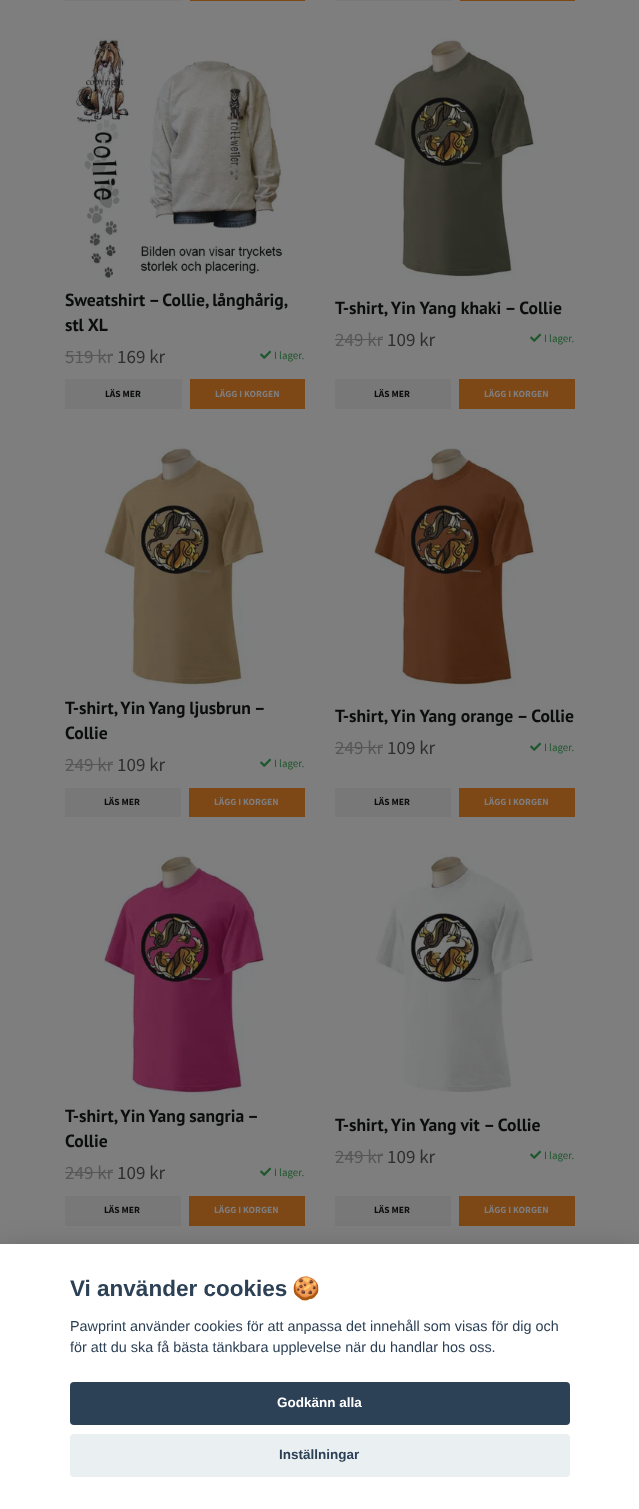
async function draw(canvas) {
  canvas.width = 639;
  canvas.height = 1509;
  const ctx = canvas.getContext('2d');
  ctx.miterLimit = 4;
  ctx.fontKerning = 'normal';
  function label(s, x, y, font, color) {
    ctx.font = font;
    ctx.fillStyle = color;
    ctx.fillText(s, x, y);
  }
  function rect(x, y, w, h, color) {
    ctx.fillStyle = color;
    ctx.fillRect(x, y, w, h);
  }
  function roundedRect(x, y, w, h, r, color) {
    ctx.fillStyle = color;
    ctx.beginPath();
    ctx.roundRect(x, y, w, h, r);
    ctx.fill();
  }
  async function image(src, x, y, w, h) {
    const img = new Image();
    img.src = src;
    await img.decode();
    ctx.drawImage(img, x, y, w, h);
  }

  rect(0, 0, 639, 1509, '#7e7e7f');
  rect(65, 0, 117, 1, '#787879');
  rect(190, 0, 115, 1, '#7e4716');
  rect(335, 0, 117, 1, '#787879');
  rect(460, 0, 115, 1, '#7e4716');
  await image('assets/img1.png', 75, 39, 209, 240);
  ctx.wordSpacing = '-0.5px';
  label('Sweatshirt – Collie, långhårig,', 65, 306, 'bold 17.6px PT Sans', '#0b0c0c');
  ctx.wordSpacing = '0px';
  label('stl XL', 65, 331, 'bold 17.6px PT Sans', '#0b0c0c');
  label('519 kr', 65, 363, '19px Source Sans Pro', '#575758');
  rect(65, 355, 48, 1, '#575758');
  label('169 kr', 117, 363, '19px Source Sans Pro', '#2e2e2f');
  await image('assets/img2.png', 260, 350, 12, 9);
  label('I lager.', 274, 359, '11px Source Sans Pro', '#1d572b');
  rect(65, 379, 117, 30, '#787879');
  label('LÄS MER', 105, 397, 'bold 9.5px Source Sans Pro', '#0b0c0c');
  rect(190, 379, 115, 30, '#7e4716');
  label('LÄGG I KORGEN', 215, 397, 'bold 9.5px Source Sans Pro', '#7e7e7f');
  await image('assets/img3.png', 374, 39, 162, 240);
  label('T-shirt, Yin Yang khaki – Collie', 335, 314, 'bold 17.6px PT Sans', '#0b0c0c');
  label('249 kr', 335, 346, '19px Source Sans Pro', '#575758');
  rect(335, 339, 48, 1, '#575758');
  label('109 kr', 387, 346, '19px Source Sans Pro', '#2e2e2f');
  await image('assets/img2.png', 530, 333, 12, 9);
  label('I lager.', 544, 342, '11px Source Sans Pro', '#1d572b');
  rect(335, 379, 116, 30, '#787879');
  label('LÄS MER', 374, 397, 'bold 9.5px Source Sans Pro', '#0b0c0c');
  rect(459, 379, 116, 30, '#7e4716');
  label('LÄGG I KORGEN', 484, 397, 'bold 9.5px Source Sans Pro', '#7e7e7f');
  await image('assets/img4.png', 101, 447, 163, 240);
  ctx.wordSpacing = '-0.5px';
  label('T-shirt, Yin Yang ljusbrun –', 65, 714, 'bold 17.6px PT Sans', '#0b0c0c');
  ctx.wordSpacing = '0px';
  label('Collie', 65, 739, 'bold 17.6px PT Sans', '#0b0c0c');
  label('249 kr', 65, 771, '19px Source Sans Pro', '#575758');
  rect(65, 764, 48, 1, '#575758');
  label('109 kr', 117, 771, '19px Source Sans Pro', '#2e2e2f');
  await image('assets/img2.png', 260, 758, 12, 9);
  label('I lager.', 274, 767, '11px Source Sans Pro', '#1d572b');
  rect(65, 788, 116, 29, '#787879');
  label('LÄS MER', 104, 805, 'bold 9.5px Source Sans Pro', '#0b0c0c');
  rect(189, 788, 116, 29, '#7e4716');
  label('LÄGG I KORGEN', 214, 805, 'bold 9.5px Source Sans Pro', '#7e7e7f');
  await image('assets/img5.png', 371, 447, 163, 240);
  label('T-shirt, Yin Yang orange – Collie', 335, 722, 'bold 17.6px PT Sans', '#0b0c0c');
  label('249 kr', 335, 754, '19px Source Sans Pro', '#575758');
  rect(335, 747, 48, 1, '#575758');
  label('109 kr', 387, 754, '19px Source Sans Pro', '#2e2e2f');
  await image('assets/img2.png', 530, 742, 12, 9);
  label('I lager.', 544, 751, '11px Source Sans Pro', '#1d572b');
  rect(335, 788, 116, 29, '#787879');
  label('LÄS MER', 374, 805, 'bold 9.5px Source Sans Pro', '#0b0c0c');
  rect(459, 788, 116, 29, '#7e4716');
  label('LÄGG I KORGEN', 484, 805, 'bold 9.5px Source Sans Pro', '#7e7e7f');
  await image('assets/img6.png', 101, 855, 165, 240);
  ctx.wordSpacing = '-0.5px';
  label('T-shirt, Yin Yang sangria –', 65, 1122, 'bold 17.6px PT Sans', '#0b0c0c');
  ctx.wordSpacing = '0px';
  label('Collie', 65, 1147, 'bold 17.6px PT Sans', '#0b0c0c');
  label('249 kr', 65, 1179, '19px Source Sans Pro', '#575758');
  rect(65, 1172, 48, 1, '#575758');
  label('109 kr', 117, 1179, '19px Source Sans Pro', '#2e2e2f');
  await image('assets/img2.png', 260, 1167, 12, 9);
  label('I lager.', 274, 1176, '11px Source Sans Pro', '#1d572b');
  rect(65, 1196, 116, 30, '#787879');
  label('LÄS MER', 104, 1213, 'bold 9.5px Source Sans Pro', '#0b0c0c');
  rect(189, 1196, 116, 30, '#7e4716');
  label('LÄGG I KORGEN', 214, 1213, 'bold 9.5px Source Sans Pro', '#7e7e7f');
  await image('assets/img7.png', 375, 855, 158, 237);
  label('T-shirt, Yin Yang vit – Collie', 335, 1131, 'bold 17.6px PT Sans', '#0b0c0c');
  label('249 kr', 335, 1163, '19px Source Sans Pro', '#575758');
  rect(335, 1155, 48, 1, '#575758');
  label('109 kr', 387, 1163, '19px Source Sans Pro', '#2e2e2f');
  await image('assets/img2.png', 530, 1150, 12, 9);
  label('I lager.', 544, 1159, '11px Source Sans Pro', '#1d572b');
  rect(335, 1196, 116, 30, '#787879');
  label('LÄS MER', 374, 1213, 'bold 9.5px Source Sans Pro', '#0b0c0c');
  rect(459, 1196, 116, 30, '#7e4716');
  label('LÄGG I KORGEN', 484, 1213, 'bold 9.5px Source Sans Pro', '#7e7e7f');
  ctx.fillStyle = '#02020347';
  ctx.filter = 'blur(15px)';
  ctx.beginPath();
  ctx.rect(0, 1254, 639, 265);
  ctx.fill();
  ctx.filter = 'none';
  rect(0, 1244, 639, 265, '#fff');
  label('Vi använder cookies', 70, 1296, 'bold 22.5px Liberation Sans', '#2d4156');
  label('🍪', 292, 1296, 'bold 22.5px Noto Color Emoji', '#2d4156');
  label('Pawprint använder cookies för att anpassa det innehåll som visas för dig och', 70, 1331, '14.4px Liberation Sans', '#2d4156');
  label('för att du ska få bästa tänkbara upplevelse när du handlar hos oss.', 70, 1352, '14.4px Liberation Sans', '#2d4156');
  roundedRect(70, 1382, 500, 43, 4, '#2d4156');
  label('Godkänn alla', 277, 1407, 'bold 13.5px Liberation Sans', '#fff');
  roundedRect(70, 1434, 500, 43, 4, '#eaeff2');
  label('Inställningar', 279, 1459, 'bold 13.5px Liberation Sans', '#2d4156');
}

draw(document.querySelector('canvas'));
